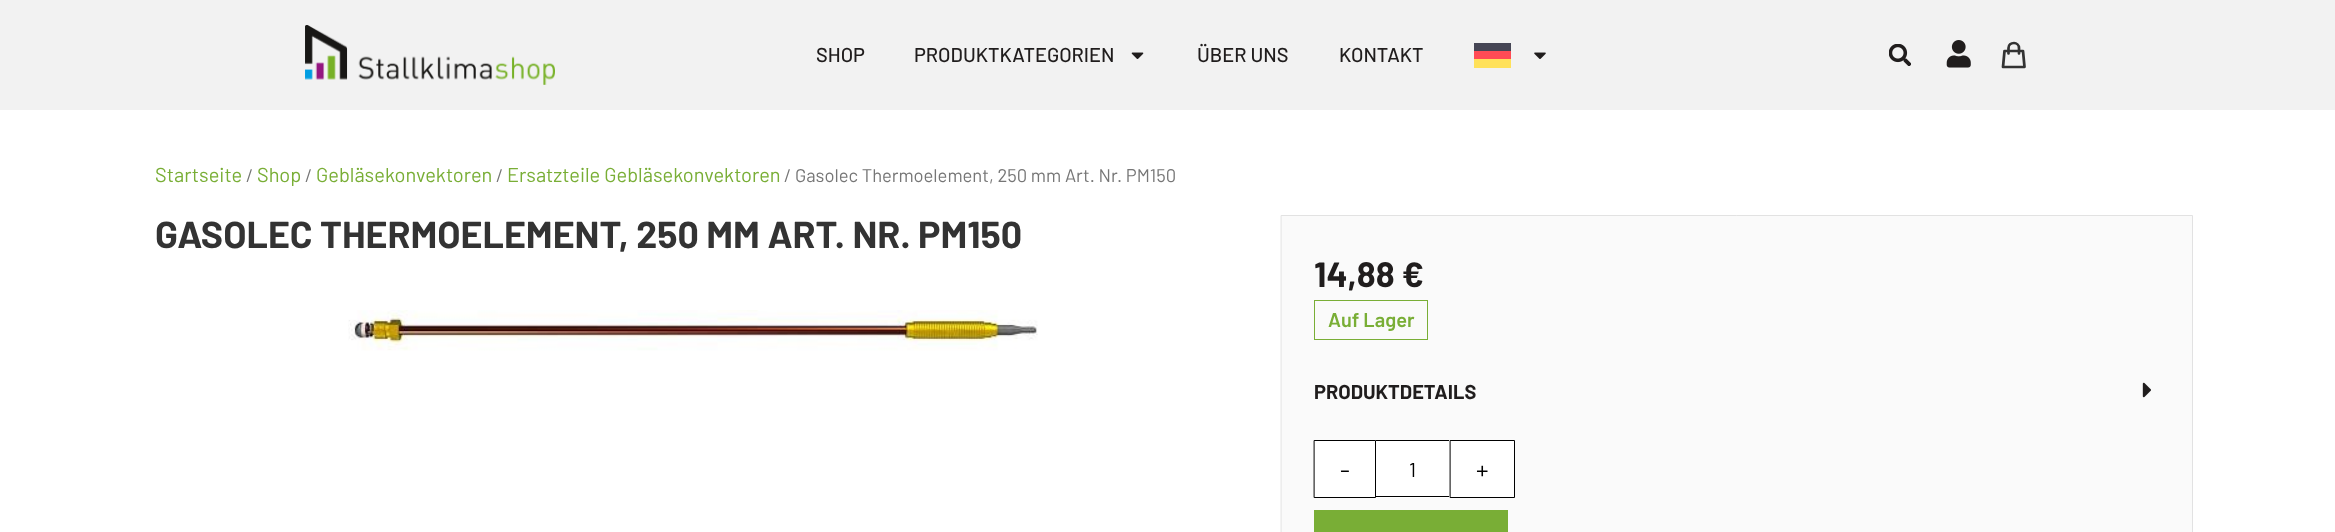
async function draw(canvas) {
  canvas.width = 2335;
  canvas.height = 532;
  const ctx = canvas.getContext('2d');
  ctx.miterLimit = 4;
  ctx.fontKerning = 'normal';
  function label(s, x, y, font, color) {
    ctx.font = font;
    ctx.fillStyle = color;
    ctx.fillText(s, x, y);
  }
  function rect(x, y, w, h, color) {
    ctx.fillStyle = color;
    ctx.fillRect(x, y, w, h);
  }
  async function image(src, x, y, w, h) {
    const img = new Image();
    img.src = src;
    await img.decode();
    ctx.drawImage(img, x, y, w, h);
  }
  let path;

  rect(0, 0, 2335, 532, '#fff');
  rect(0, 0, 2335, 110, '#f2f2f2');
  await image('assets/img1.png', 305, 25, 250, 60);
  label('SHOP', 816, 62, '500 20px Barlow', '#201d1d');
  label('PRODUKTKATEGORIEN', 914, 62, '500 20px Barlow', '#201d1d');
  await image('assets/img2.png', 1131, 52, 13, 7);
  label('ÜBER UNS', 1197, 62, '500 20px Barlow', '#201d1d');
  label('KONTAKT', 1339, 62, '500 20px Barlow', '#201d1d');
  rect(1474, 51, 37, 8, '#ff4b55');
  rect(1474, 59, 37, 9, '#ffe15a');
  rect(1474, 43, 37, 8, '#464655');
  await image('assets/img3.png', 1534, 52, 12, 7);
  await image('assets/img4.png', 1889, 44, 22, 22);
  await image('assets/img5.png', 1946, 40, 25, 28);
  path = new Path2D('M2019 53.5V48C2019 45 2016.5 43 2014 43C2011 43 2008.5 45 2008.5 48V53.5M2004.5 51H2023L2024.5 67H2003Z');
  ctx.strokeStyle = '#333';
  ctx.lineWidth = 2.7;
  ctx.lineCap = 'round';
  ctx.lineJoin = 'round';
  ctx.stroke(path);
  label('Startseite', 155, 182, '20px Barlow', '#79ae36');
  label('/', 246, 182, '18.4px Barlow', '#767676');
  label('Shop', 257, 182, '20px Barlow', '#79ae36');
  label('/', 305, 182, '18.4px Barlow', '#767676');
  label('Gebläsekonvektoren', 316, 182, '20px Barlow', '#79ae36');
  label('/', 496, 182, '18.4px Barlow', '#767676');
  label('Ersatzteile Gebläsekonvektoren', 507, 182, '20px Barlow', '#79ae36');
  label('/ Gasolec Thermoelement, 250 mm Art. Nr. PM150', 784, 182, '18.4px Barlow', '#767676');
  label('GASOLEC THERMOELEMENT, 250 MM ART. NR. PM150', 155, 248, 'bold 37.5px Barlow', '#333');
  await image('assets/img6.png', 348, 310, 690, 41);
  ctx.fillStyle = '#fafafa';
  ctx.beginPath();
  ctx.rect(1281.5, 215.5, 911, 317);
  ctx.fill();
  ctx.strokeStyle = '#e2e2e2';
  ctx.lineWidth = 1;
  ctx.lineJoin = 'miter';
  ctx.stroke();
  label('14,88 €', 1314, 287, 'bold 35px Barlow', '#201d1d');
  ctx.strokeStyle = '#79ae36';
  ctx.strokeRect(1314.5, 300.5, 113, 39);
  label('Auf Lager', 1328, 327, '600 20px Barlow', '#79ae36');
  label('PRODUKTDETAILS', 1314, 399, 'bold 20px Barlow', '#201d1d');
  await image('assets/img7.png', 2142, 382, 9, 16);
  ctx.fillStyle = '#fff';
  ctx.beginPath();
  ctx.rect(1314.5, 440.5, 61, 57);
  ctx.fill();
  ctx.strokeStyle = '#000';
  ctx.stroke();
  label('-', 1340, 479, '25px Barlow', '#000');
  rect(1376, 441, 73, 57, '#fff');
  rect(1376, 440, 73, 1, '#000');
  rect(1376, 496, 73, 1, '#000');
  label('1', 1409, 477, '20px Barlow', '#000');
  ctx.fillStyle = '#fff';
  ctx.beginPath();
  ctx.rect(1450.5, 440.5, 64, 57);
  ctx.fill();
  ctx.stroke();
  label('+', 1476, 479, '25px Barlow', '#000');
  rect(1314, 510, 194, 22, '#79ae36');
}

draw(document.querySelector('canvas'));
